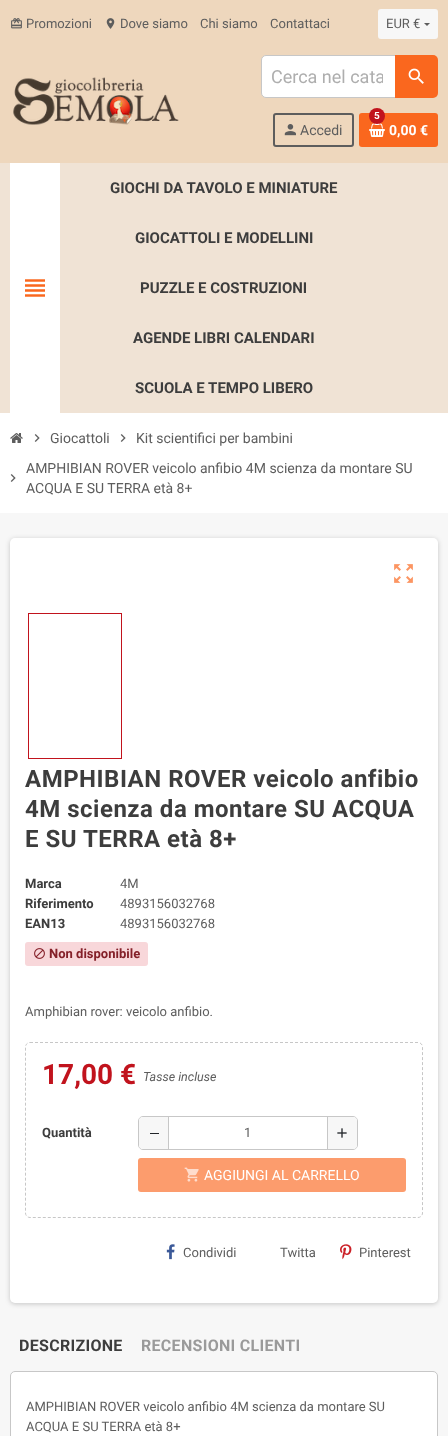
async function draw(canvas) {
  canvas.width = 448;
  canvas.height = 1436;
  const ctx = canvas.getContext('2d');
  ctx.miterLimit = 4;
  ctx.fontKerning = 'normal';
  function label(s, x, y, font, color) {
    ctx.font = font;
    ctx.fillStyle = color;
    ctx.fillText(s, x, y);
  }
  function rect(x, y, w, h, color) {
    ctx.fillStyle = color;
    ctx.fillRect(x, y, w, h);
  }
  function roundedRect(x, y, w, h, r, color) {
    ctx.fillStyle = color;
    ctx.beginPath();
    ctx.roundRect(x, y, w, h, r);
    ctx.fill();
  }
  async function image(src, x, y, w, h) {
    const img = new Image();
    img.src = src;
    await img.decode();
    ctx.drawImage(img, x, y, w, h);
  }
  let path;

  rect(0, 0, 448, 1436, '#eed7bd');
  await image('assets/img1.png', 11, 18, 11, 11);
  label('Promozioni', 26, 28, '13px Roboto', '#5d5d5d');
  await image('assets/img2.png', 106, 18, 9, 11);
  label('Dove siamo', 120, 28, '13px Roboto', '#5d5d5d');
  label('Chi siamo', 200, 28, '13px Roboto', '#5d5d5d');
  label('Contattaci', 270, 28, '13px Roboto', '#5d5d5d');
  roundedRect(378, 9, 60, 30, 3, '#f7f7f7');
  label('EUR €', 386, 28, '13px Roboto', '#5d5d5d');
  path = new Path2D('M424 23H430L427 26Z');
  ctx.fill(path);
  await image('assets/img3.png', 13, 77, 166, 48);
  ctx.fillStyle = '#fff';
  ctx.beginPath();
  ctx.roundRect(261.5, 55.5, 175, 42, 4.5);
  ctx.fill();
  ctx.strokeStyle = '#c7c7c7';
  ctx.stroke();
  ctx.save();
  ctx.beginPath();
  ctx.rect(271, 66, 112, 21);
  ctx.clip();
  label('Cerca nel cata', 271, 83, '18px Roboto', '#aeaeae');
  ctx.restore();
  ctx.fillStyle = '#fa671e';
  ctx.beginPath();
  ctx.roundRect(395, 55, 43, 43, [0, 5, 5, 0]);
  ctx.fill();
  await image('assets/img4.png', 408, 68, 16, 16);
  ctx.beginPath();
  ctx.roundRect(274, 114, 79, 32, 2);
  ctx.strokeStyle = '#5d5d5d';
  ctx.lineWidth = 2;
  ctx.stroke();
  await image('assets/img5.png', 284, 124, 12, 12);
  label('Accedi', 300, 135, '14px Roboto', '#5d5d5d');
  roundedRect(359, 113, 79, 34, 3, '#fa671e');
  await image('assets/img6.png', 369, 123, 16, 14);
  ctx.fillStyle = '#c1131d';
  ctx.beginPath();
  ctx.arc(377, 116, 8, 0, 2 * Math.PI);
  ctx.fill();
  label('5', 374, 119, 'bold 10px "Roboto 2"', '#fff');
  label('0,00 €', 389, 135, 'bold 14px "Roboto 2"', '#fff');
  rect(0, 163, 448, 250, '#f0e3d5');
  rect(10, 163, 50, 250, '#fff');
  await image('assets/img7.png', 25, 279, 20, 18);
  label('GIOCHI DA TAVOLO E MINIATURE', 110, 193, 'bold 15px Roboto', '#3d3d3d');
  label('GIOCATTOLI E MODELLINI', 135, 243, 'bold 15px Roboto', '#3d3d3d');
  label('PUZZLE E COSTRUZIONI', 140, 293, 'bold 15px Roboto', '#3d3d3d');
  label('AGENDE LIBRI CALENDARI', 133, 343, 'bold 15px Roboto', '#3d3d3d');
  label('SCUOLA E TEMPO LIBERO', 135, 393, 'bold 15px Roboto', '#3d3d3d');
  rect(0, 513, 448, 923, '#f7f7f7');
  rect(0, 413, 448, 100, '#fff');
  await image('assets/img8.png', 10, 433, 13, 10);
  await image('assets/img9.png', 34, 434, 6, 8);
  label('Giocattoli', 50, 443, '14px Roboto', '#5d5d5d');
  await image('assets/img9.png', 120, 434, 6, 8);
  label('Kit scientifici per bambini', 136, 443, '14px Roboto', '#5d5d5d');
  await image('assets/img9.png', 10, 474, 6, 8);
  label('AMPHIBIAN ROVER veicolo anfibio 4M scienza da montare SU', 26, 473, '14px Roboto', '#5d5d5d');
  label('ACQUA E SU TERRA età 8+', 26, 493, '14px Roboto', '#5d5d5d');
  ctx.fillStyle = '#00000033';
  ctx.filter = 'blur(2.5px)';
  ctx.beginPath();
  ctx.roundRect(10, 539, 428, 765, 5);
  ctx.fill();
  ctx.filter = 'none';
  roundedRect(10, 538, 428, 765, 5, '#fff');
  await image('assets/img10.png', 394, 564, 19, 19);
  ctx.strokeStyle = '#c1131d';
  ctx.lineWidth = 1;
  ctx.strokeRect(28.5, 613.5, 93, 145);
  ctx.letterSpacing = '0.5px';
  label('AMPHIBIAN ROVER veicolo anfibio', 25, 787, 'bold 24px Roboto', '#3d3d3d');
  label('4M scienza da montare SU ACQUA', 25, 817, 'bold 24px Roboto', '#3d3d3d');
  label('E SU TERRA età 8+', 25, 847, 'bold 24px Roboto', '#3d3d3d');
  ctx.letterSpacing = '0px';
  label('Marca', 25, 888, 'bold 13px "Roboto 2"', '#3d3d3d');
  label('4M', 120, 888, '13px Roboto', '#5d5d5d');
  label('Riferimento', 25, 908, 'bold 13px "Roboto 2"', '#3d3d3d');
  label('4893156032768', 120, 908, '13px Roboto', '#5d5d5d');
  label('EAN13', 25, 928, 'bold 13px "Roboto 2"', '#3d3d3d');
  label('4893156032768', 120, 928, '13px Roboto', '#5d5d5d');
  roundedRect(25, 942, 123, 24, 3, '#f8d7da');
  await image('assets/img11.png', 34, 948, 11, 11);
  label('Non disponibile', 49, 958, 'bold 13px "Roboto 2"', '#842029');
  label('Amphibian rover: veicolo anfibio.', 25, 1016, '13px Roboto', '#5d5d5d');
  path = new Path2D('M30 1042.5H418C420.5 1042.5 422.5 1044.5 422.5 1047V1213C422.5 1215.5 420.5 1217.5 418 1217.5H30C27.5 1217.5 25.5 1215.5 25.5 1213V1047C25.5 1044.5 27.5 1042.5 30 1042.5Z');
  ctx.strokeStyle = '#c7c7c7';
  ctx.setLineDash([3, 2]);
  ctx.stroke(path);
  label('17,00 €', 42, 1084, 'bold 28px "Roboto 2"', '#c1131d');
  label('Tasse incluse', 143, 1081, 'italic 12.5px Roboto', '#5d5d5d');
  label('Quantità', 42, 1137, 'bold 13px "Roboto 2"', '#3d3d3d');
  ctx.beginPath();
  ctx.roundRect(138.5, 1116.5, 219, 33, 4.5);
  ctx.setLineDash([]);
  ctx.stroke();
  ctx.fillStyle = '#f7f7f7';
  ctx.beginPath();
  ctx.roundRect(139, 1117, 30, 32, [4, 0, 0, 4]);
  ctx.fill();
  rect(150, 1133, 9, 1, '#212529');
  ctx.fillStyle = '#f7f7f7';
  ctx.beginPath();
  ctx.roundRect(327, 1117, 30, 32, [0, 4, 4, 0]);
  ctx.fill();
  rect(327, 1117, 1, 32, '#c7c7c7');
  rect(168, 1117, 1, 32, '#c7c7c7');
  label('1', 244, 1137, '13px Roboto', '#5d5d5d');
  await image('assets/img12.png', 337, 1128, 10, 10);
  roundedRect(138, 1158, 268, 34, 3, '#fc9c6d');
  await image('assets/img13.png', 184, 1167, 15, 15);
  label('AGGIUNGI AL CARRELLO', 204, 1180, '14px Roboto', '#fff');
  await image('assets/img14.png', 166, 1244, 9, 16);
  label('Condividi', 183, 1257, '13px Roboto', '#5d5d5d');
  label('Twitta', 280, 1257, '13px Roboto', '#5d5d5d');
  await image('assets/img15.png', 340, 1244, 12, 16);
  label('Pinterest', 359, 1257, '13px Roboto', '#5d5d5d');
  ctx.letterSpacing = '0.3px';
  label('DESCRIZIONE', 19, 1351, 'bold 16px Roboto', '#3d3d3d');
  label('RECENSIONI CLIENTI', 141, 1351, 'bold 16px Roboto', '#9a9a9a');
  ctx.fillStyle = '#fff';
  ctx.beginPath();
  ctx.roundRect(10.5, 1371.5, 427, 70, 4.5);
  ctx.fill();
  ctx.stroke();
  ctx.letterSpacing = '0px';
  label('AMPHIBIAN ROVER veicolo anfibio 4M scienza da montare SU', 26, 1411, '13px Roboto', '#5d5d5d');
  label('ACQUA E SU TERRA età 8+', 26, 1431, '13px Roboto', '#5d5d5d');
}

draw(document.querySelector('canvas'));
